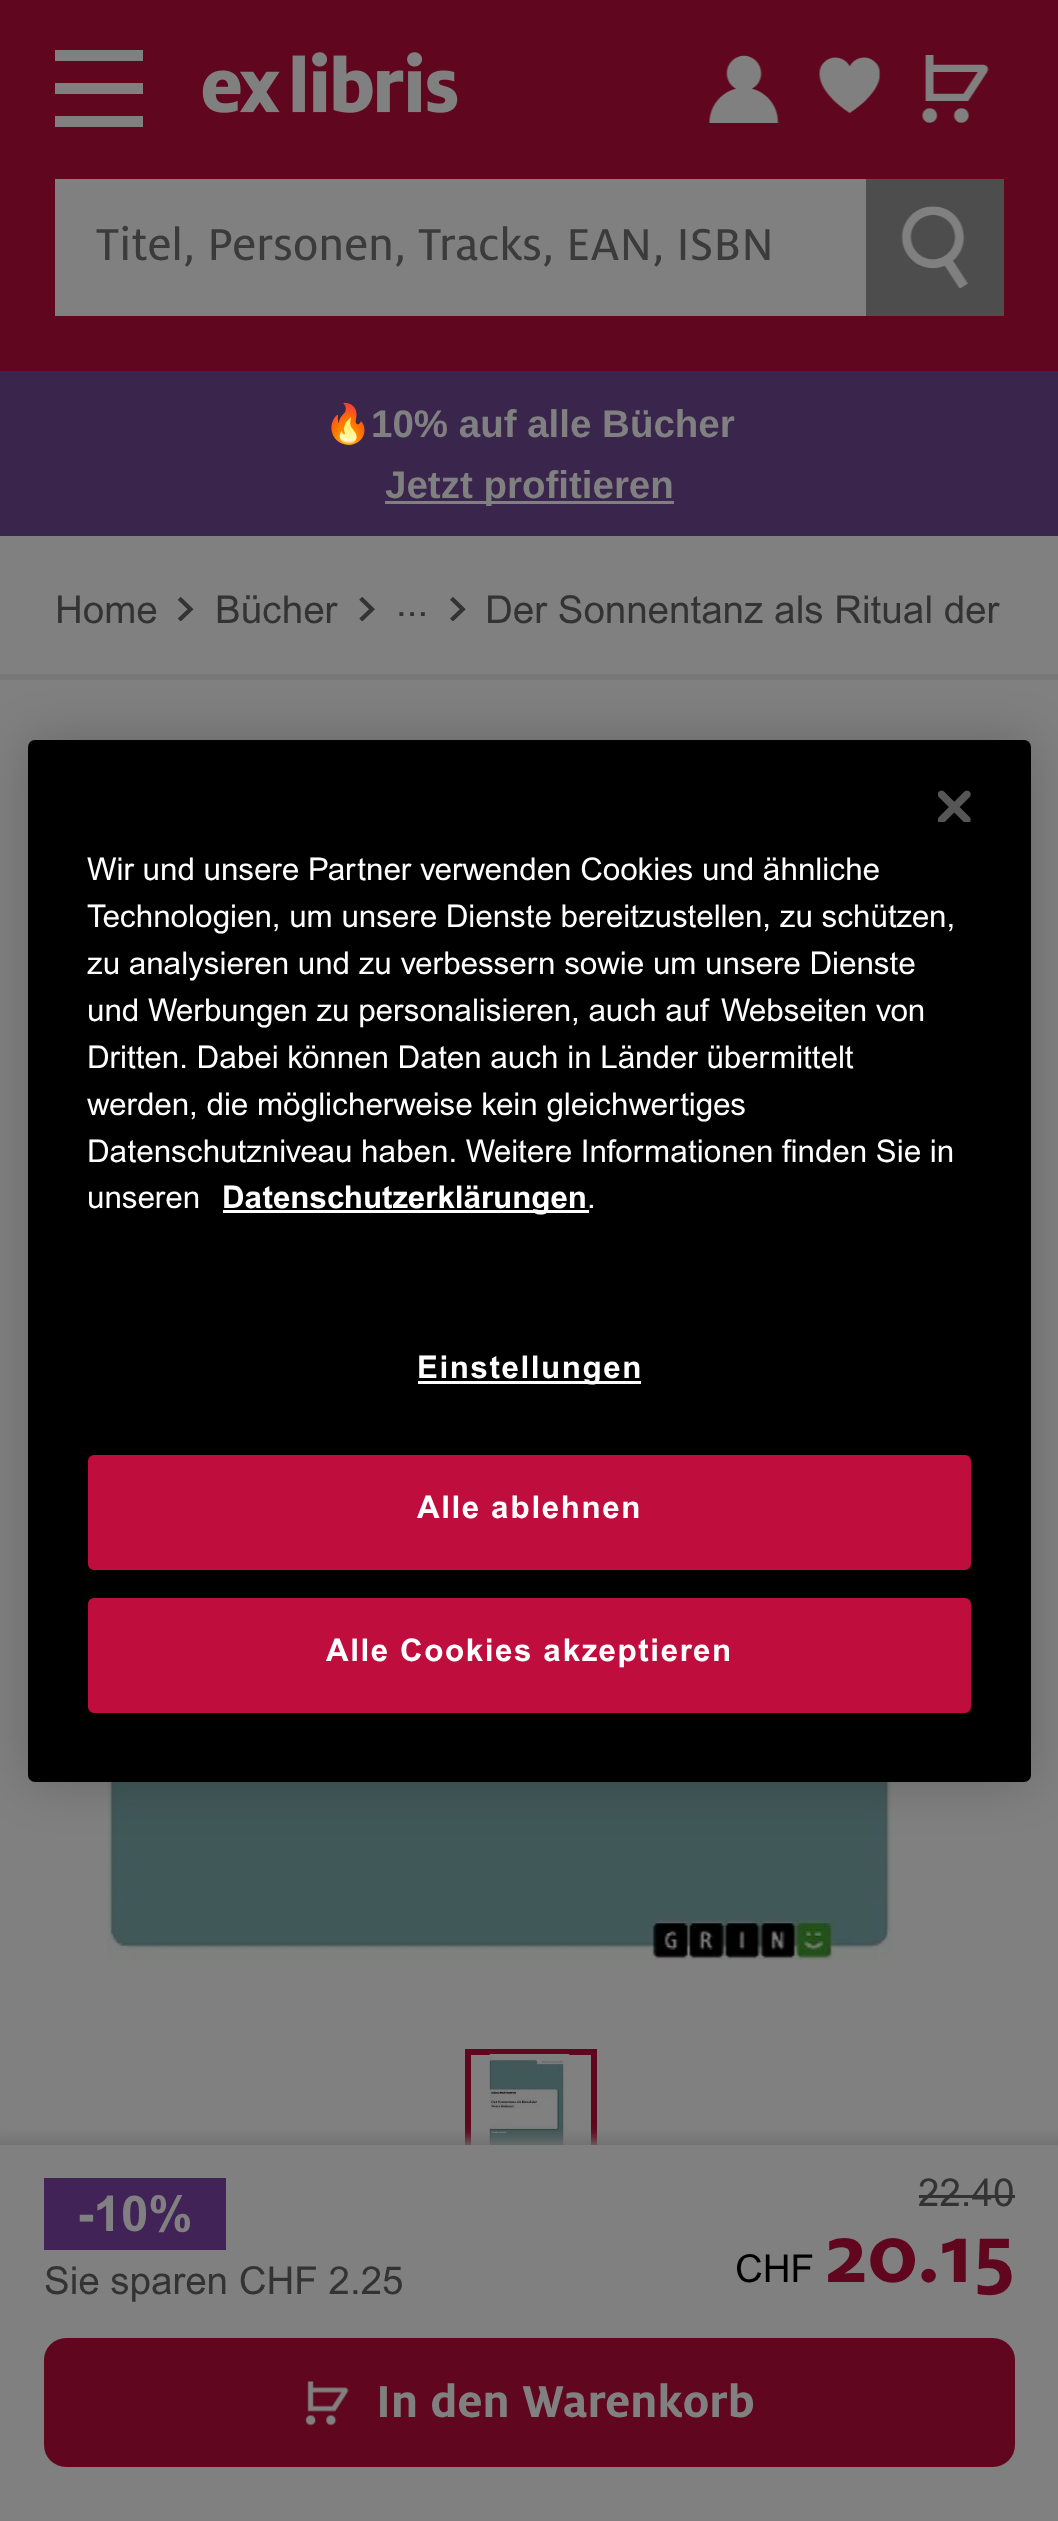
async function draw(canvas) {
  canvas.width = 1058;
  canvas.height = 2521;
  const ctx = canvas.getContext('2d');
  ctx.miterLimit = 4;
  ctx.fontKerning = 'normal';
  function label(s, x, y, font, color) {
    ctx.font = font;
    ctx.fillStyle = color;
    ctx.fillText(s, x, y);
  }
  function rect(x, y, w, h, color) {
    ctx.fillStyle = color;
    ctx.fillRect(x, y, w, h);
  }
  function roundedRect(x, y, w, h, r, color) {
    ctx.fillStyle = color;
    ctx.beginPath();
    ctx.roundRect(x, y, w, h, r);
    ctx.fill();
  }
  async function image(src, x, y, w, h) {
    const img = new Image();
    img.src = src;
    await img.decode();
    ctx.drawImage(img, x, y, w, h);
  }

  rect(0, 0, 1058, 2521, '#808080');
  rect(0, 0, 1058, 371, '#60071f');
  rect(55, 50, 88, 11, '#808080');
  rect(55, 83, 88, 11, '#808080');
  rect(55, 116, 88, 11, '#808080');
  await image('assets/img1.png', 202, 52, 256, 61);
  await image('assets/img2.png', 709, 55, 70, 68);
  await image('assets/img3.png', 819, 57, 62, 56);
  await image('assets/img4.png', 922, 55, 67, 68);
  rect(55, 179, 811, 137, '#808080');
  label('Titel, Personen, Tracks, EAN, ISBN', 96, 260, '49.5px "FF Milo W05"', '#3b3b3b');
  rect(866, 179, 138, 137, '#4d4d4d');
  await image('assets/img5.png', 901, 206, 68, 83);
  rect(0, 371, 1058, 165, '#3a254c');
  label('🔥', 324, 437, '38.5px Noto Color Emoji', '#808080');
  label('10% auf alle Bücher', 371, 437, 'bold 38.5px Liberation Sans', '#808080');
  rect(385, 501, 289, 3, '#808080');
  label('Jetzt profitieren', 385, 498, 'bold 38.5px Liberation Sans', '#808080');
  rect(0, 674, 1058, 6, '#787878');
  label('Home', 55, 623, '38.5px Arial', '#333');
  await image('assets/img6.png', 177, 597, 17, 25);
  label('Bücher', 215, 623, '38.5px Arial', '#333');
  await image('assets/img7.png', 359, 597, 16, 25);
  label('...', 396, 616, '38.5px Arial', '#333');
  await image('assets/img8.png', 450, 597, 16, 25);
  label('Der Sonnentanz als Ritual der', 485, 623, '38.5px Arial', '#333');
  await image('assets/img9.png', 107, 1782, 786, 179);
  ctx.strokeStyle = '#60071f';
  ctx.lineWidth = 6;
  ctx.strokeRect(468, 2052, 126, 126);
  rect(490, 2054, 79, 1, '#808080');
  await image('assets/img10.png', 489, 2054, 81, 91);
  ctx.fillStyle = '#6e6e6e';
  ctx.filter = 'blur(7px)';
  ctx.beginPath();
  ctx.rect(-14, 2140, 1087, 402);
  ctx.fill();
  ctx.filter = 'none';
  rect(0, 2145, 1058, 376, '#808080');
  rect(44, 2178, 182, 72, '#412358');
  label('-10%', 77, 2231, 'bold 49.5px Arial', '#808080');
  label('Sie sparen CHF 2.25', 44, 2294, '38.5px Arial', '#333');
  label('22.40', 918, 2206, '38.5px Arial', '#333');
  rect(919, 2195, 96, 3, '#333');
  label('CHF', 735, 2282, '38.5px Arial', '#000');
  label('20.15', 825, 2282, 'bold 88px "FF Milo W05"', '#60071f');
  roundedRect(44, 2338, 971, 129, 22, '#60071f');
  await image('assets/img11.png', 305, 2381, 44, 45);
  label('In den Warenkorb', 376, 2417, 'bold 49.5px "FF Milo W05"', '#808080');
  ctx.fillStyle = '#00000033';
  ctx.filter = 'blur(25px)';
  ctx.beginPath();
  ctx.roundRect(28, 740, 1003, 1042, 7);
  ctx.fill();
  ctx.filter = 'none';
  roundedRect(28, 740, 1003, 1042, 7, '#000');
  await image('assets/img12.png', 938, 790, 33, 32);
  label('Wir und unsere Partner verwenden Cookies und ähnliche', 87, 880, '31.3px Arial', '#fff');
  label('Technologien, um unsere Dienste bereitzustellen, zu schützen,', 87, 927, '31.3px Arial', '#fff');
  label('zu analysieren und zu verbessern sowie um unsere Dienste', 87, 974, '31.3px Arial', '#fff');
  label('und Werbungen zu personalisieren, auch auf Webseiten von', 87, 1021, '31.3px Arial', '#fff');
  label('Dritten. Dabei können Daten auch in Länder übermittelt', 87, 1068, '31.3px Arial', '#fff');
  label('werden, die möglicherweise kein gleichwertiges', 87, 1115, '31.3px Arial', '#fff');
  label('Datenschutzniveau haben. Weitere Informationen finden Sie in', 87, 1162, '31.3px Arial', '#fff');
  label('unseren', 87, 1208, '31.3px Arial', '#fff');
  rect(223, 1210, 366, 3, '#fff');
  label('Datenschutzerklärungen', 222, 1208, 'bold 31.3px Arial', '#fff');
  label('.', 587, 1208, '31.3px Arial', '#fff');
  rect(418, 1381, 223, 3, '#fff');
  ctx.letterSpacing = '1.6px';
  label('Einstellungen', 417, 1378, 'bold 31.3px Arial', '#fff');
  ctx.fillStyle = '#bf0d3e';
  ctx.beginPath();
  ctx.roundRect(89.5, 1456.5, 880, 112, 4.5);
  ctx.fill();
  ctx.strokeStyle = '#bf0d3e';
  ctx.lineWidth = 3;
  ctx.stroke();
  label('Alle ablehnen', 417, 1518, 'bold 31.3px Arial', '#fff');
  ctx.fillStyle = '#bf0d3e';
  ctx.beginPath();
  ctx.roundRect(89.5, 1599.5, 880, 112, 4.5);
  ctx.fill();
  ctx.stroke();
  label('Alle Cookies akzeptieren', 326, 1661, 'bold 31.3px Arial', '#fff');
}

draw(document.querySelector('canvas'));
